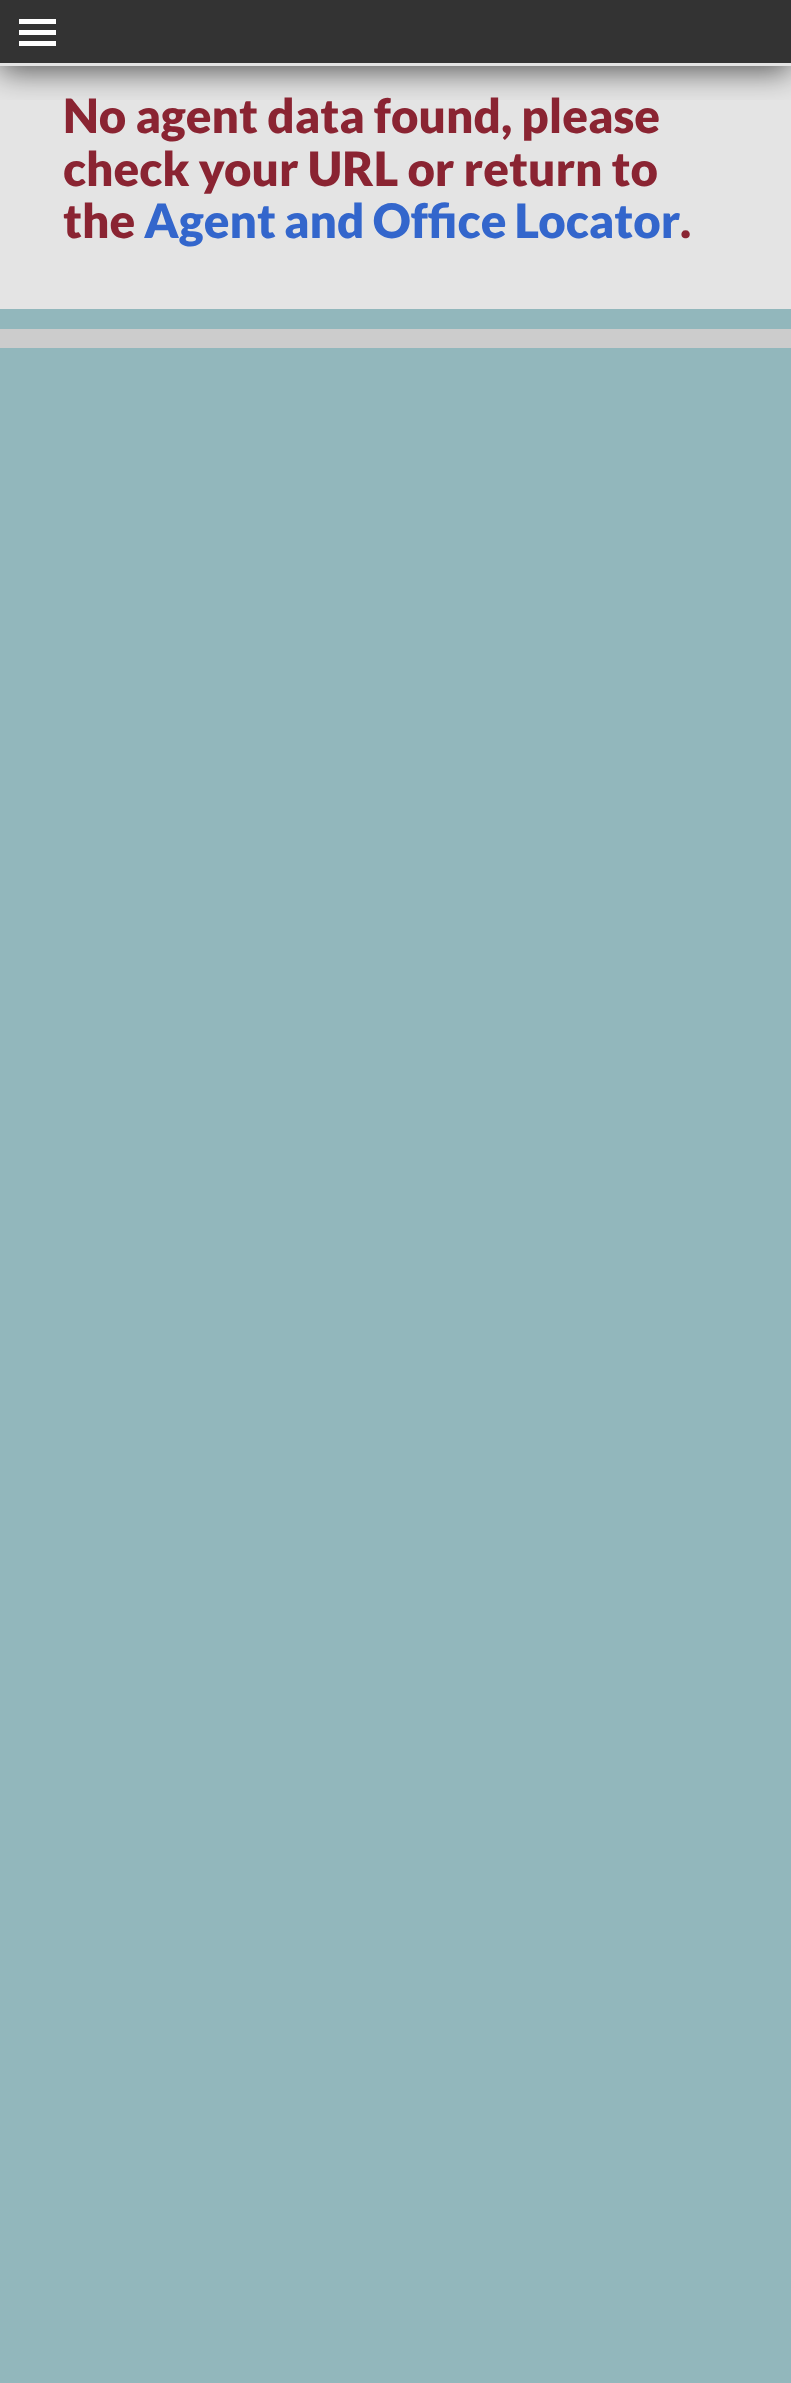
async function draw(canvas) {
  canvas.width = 791;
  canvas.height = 2383;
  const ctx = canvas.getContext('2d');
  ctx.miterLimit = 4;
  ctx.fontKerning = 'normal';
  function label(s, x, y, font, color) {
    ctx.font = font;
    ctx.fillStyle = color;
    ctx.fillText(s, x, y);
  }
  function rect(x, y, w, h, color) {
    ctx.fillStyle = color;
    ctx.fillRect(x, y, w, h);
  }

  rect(0, 0, 791, 2383, '#92b7bc');
  rect(0, 63, 791, 246, '#e4e4e4');
  ctx.save();
  ctx.beginPath();
  ctx.rect(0, 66, 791, 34);
  ctx.clip();
  ctx.fillStyle = '#000000a1';
  ctx.filter = 'blur(15.5px)';
  ctx.beginPath();
  ctx.rect(0, 5, 791, 66);
  ctx.fill();
  ctx.filter = 'none';
  ctx.restore();
  rect(0, 0, 791, 63, '#333');
  rect(19, 19, 37, 5, '#fff');
  rect(19, 30, 37, 5, '#fff');
  rect(19, 41, 37, 5, '#fff');
  label('No agent data found, please', 63, 133, '900 47.4px Lato', '#8a2432');
  label('check your URL or return to', 63, 186, '900 47.4px Lato', '#8a2432');
  label('the', 63, 238, '900 47.4px Lato', '#8a2432');
  ctx.wordSpacing = '-1px';
  label('Agent and Office Locator', 144, 238, '900 47.4px Lato', '#36c');
  ctx.wordSpacing = '0px';
  label('.', 680, 238, '900 47.4px Lato', '#8a2432');
  rect(0, 329, 791, 19, '#ccc');
}

draw(document.querySelector('canvas'));
